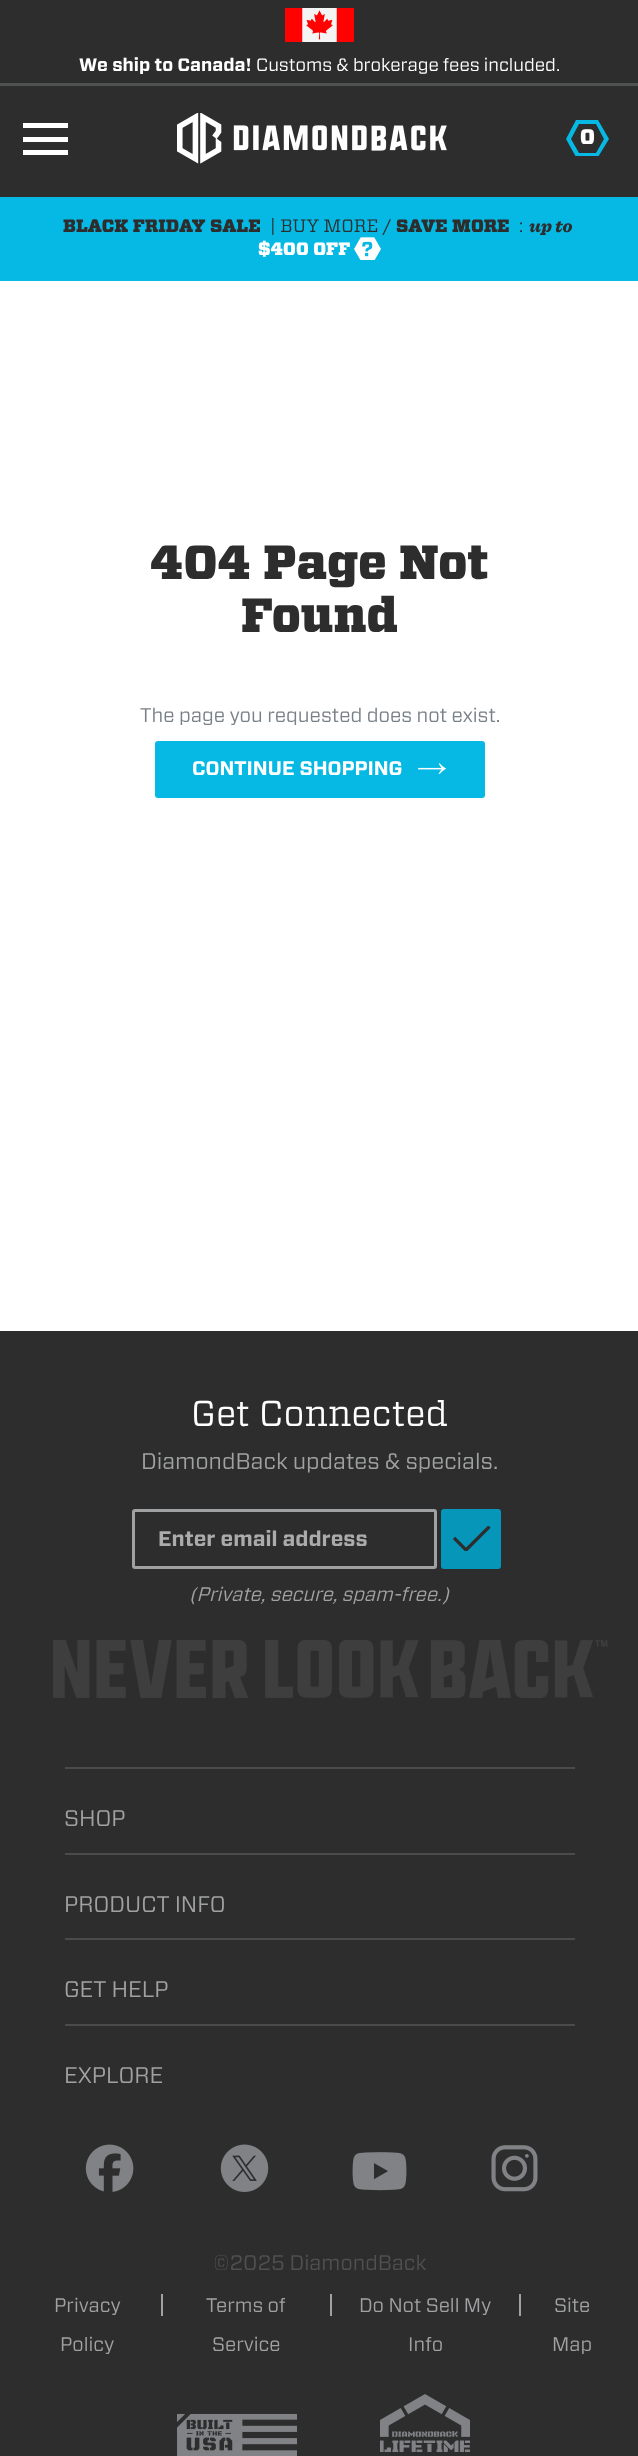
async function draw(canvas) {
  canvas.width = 638;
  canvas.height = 2456;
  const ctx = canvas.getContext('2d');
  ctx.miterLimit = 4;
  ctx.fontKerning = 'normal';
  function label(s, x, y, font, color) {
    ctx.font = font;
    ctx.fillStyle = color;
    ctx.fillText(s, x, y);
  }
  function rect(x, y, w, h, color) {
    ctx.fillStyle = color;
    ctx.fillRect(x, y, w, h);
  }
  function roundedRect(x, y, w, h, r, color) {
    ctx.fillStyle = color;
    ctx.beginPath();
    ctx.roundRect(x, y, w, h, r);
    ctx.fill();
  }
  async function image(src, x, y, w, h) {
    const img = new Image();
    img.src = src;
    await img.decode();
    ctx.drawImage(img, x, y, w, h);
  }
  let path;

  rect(0, 0, 638, 2456, '#2d2d2d');
  rect(0, 83, 638, 3, '#4f5150');
  await image('assets/img1.png', 285, 8, 69, 34);
  label('We ship to Canada!', 79, 71, 'bold 18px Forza', '#fff');
  label('Customs & brokerage fees included.', 256, 71, '18px Forza', '#fff');
  rect(23, 123, 45, 5, '#fff');
  rect(23, 137, 45, 5, '#fff');
  rect(23, 150, 45, 5, '#fff');
  await image('assets/img2.png', 177, 113, 270, 51);
  ctx.save();
  ctx.beginPath();
  ctx.rect(566, 120, 43, 36);
  ctx.clip();
  ctx.fillStyle = '#06b9e4';
  path = new Path2D('M598 157H576L566 139L576 120H598L609 139ZM579 153H596L604 139L596 124H579L571 139Z');
  ctx.fill(path);
  ctx.restore();
  label('0', 580, 144, '900 21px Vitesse', '#fff');
  rect(0, 197, 638, 84, '#06b9e4');
  label('BLACK FRIDAY SALE', 63, 232, '900 18px Vitesse', '#2d2d2d');
  label('| BUY MORE /', 270, 232, '18px Vitesse', '#2d2d2d');
  label('SAVE MORE', 396, 232, '900 18px Vitesse', '#2d2d2d');
  label(':', 519, 232, '18px Forza', '#2d2d2d');
  label('up to', 529, 232, 'italic 900 18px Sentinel', '#2d2d2d');
  label('$400 OFF', 258, 255, '900 18px Vitesse', '#fff');
  await image('assets/img3.png', 354, 237, 27, 23);
  rect(0, 281, 638, 1050, '#fff');
  label('404 Page Not', 150, 579, '900 48px Vitesse', '#2d2d2d');
  label('Found', 241, 632, '900 48px Vitesse', '#2d2d2d');
  label('The page you requested does not exist.', 140, 722, '19.7px Forza', '#788188');
  roundedRect(155, 741, 330, 57, 3, '#06b9e4');
  label('CONTINUE SHOPPING', 192, 775, 'bold 19.5px Forza', '#fff');
  await image('assets/img4.png', 418, 763, 28, 11);
  label('Get Connected', 191, 1426, '36px Vitesse', '#fff');
  label('DiamondBack updates & specials.', 141, 1469, '22.5px Forza', '#a0a1a2');
  ctx.beginPath();
  ctx.roundRect(133.5, 1510.5, 302, 57, 1.5);
  ctx.strokeStyle = '#a0a1a2';
  ctx.lineWidth = 3;
  ctx.stroke();
  label('Enter email address', 158, 1546, 'bold 21px Forza', '#ababab');
  roundedRect(441, 1509, 60, 60, 3, '#0596b9');
  ctx.save();
  ctx.beginPath();
  ctx.rect(453, 1526, 38, 25);
  ctx.clip();
  path = new Path2D('M454 1538L466 1550L489.5 1526.5');
  ctx.strokeStyle = '#2d2d2d';
  ctx.lineWidth = 3.2;
  ctx.stroke(path);
  ctx.restore();
  label('(Private, secure, spam-free.)', 189, 1601, 'italic 19.5px Forza', '#a0a1a2');
  await image('assets/img5.png', 53, 1640, 555, 58);
  rect(65, 1767, 510, 2, '#4b4b4b');
  label('SHOP', 64, 1826, '22.5px Forza', '#a0a1a2');
  rect(65, 1853, 510, 2, '#4b4b4b');
  label('PRODUCT INFO', 64, 1912, '22.5px Forza', '#a0a1a2');
  rect(65, 1938, 510, 2, '#4b4b4b');
  label('GET HELP', 64, 1997, '22.5px Forza', '#a0a1a2');
  rect(65, 2024, 510, 2, '#4b4b4b');
  label('EXPLORE', 64, 2083, '22.5px Forza', '#a0a1a2');
  await image('assets/img6.png', 85, 2144, 49, 48);
  await image('assets/img7.png', 220, 2144, 49, 48);
  await image('assets/img8.png', 352, 2152, 55, 39);
  await image('assets/img9.png', 491, 2145, 47, 47);
  label('©2025 DiamondBack', 213, 2270, '21px Forza', '#4f5150');
  label('Privacy', 54, 2312, '19.5px Forza', '#a0a1a2');
  label('Policy', 60, 2351, '19.5px Forza', '#a0a1a2');
  rect(161, 2294, 2, 22, '#a0a1a2');
  label('Terms of', 206, 2312, '19.5px Forza', '#a0a1a2');
  label('Service', 212, 2351, '19.5px Forza', '#a0a1a2');
  rect(330, 2294, 2, 22, '#a0a1a2');
  label('Do Not Sell My', 359, 2312, '19.5px Forza', '#a0a1a2');
  label('Info', 408, 2351, '19.5px Forza', '#a0a1a2');
  rect(519, 2294, 2, 22, '#a0a1a2');
  label('Site', 554, 2312, '19.5px Forza', '#a0a1a2');
  label('Map', 552, 2351, '19.5px Forza', '#a0a1a2');
  await image('assets/img10.png', 177, 2414, 120, 42);
  await image('assets/img11.png', 380, 2394, 90, 58);
}

draw(document.querySelector('canvas'));
